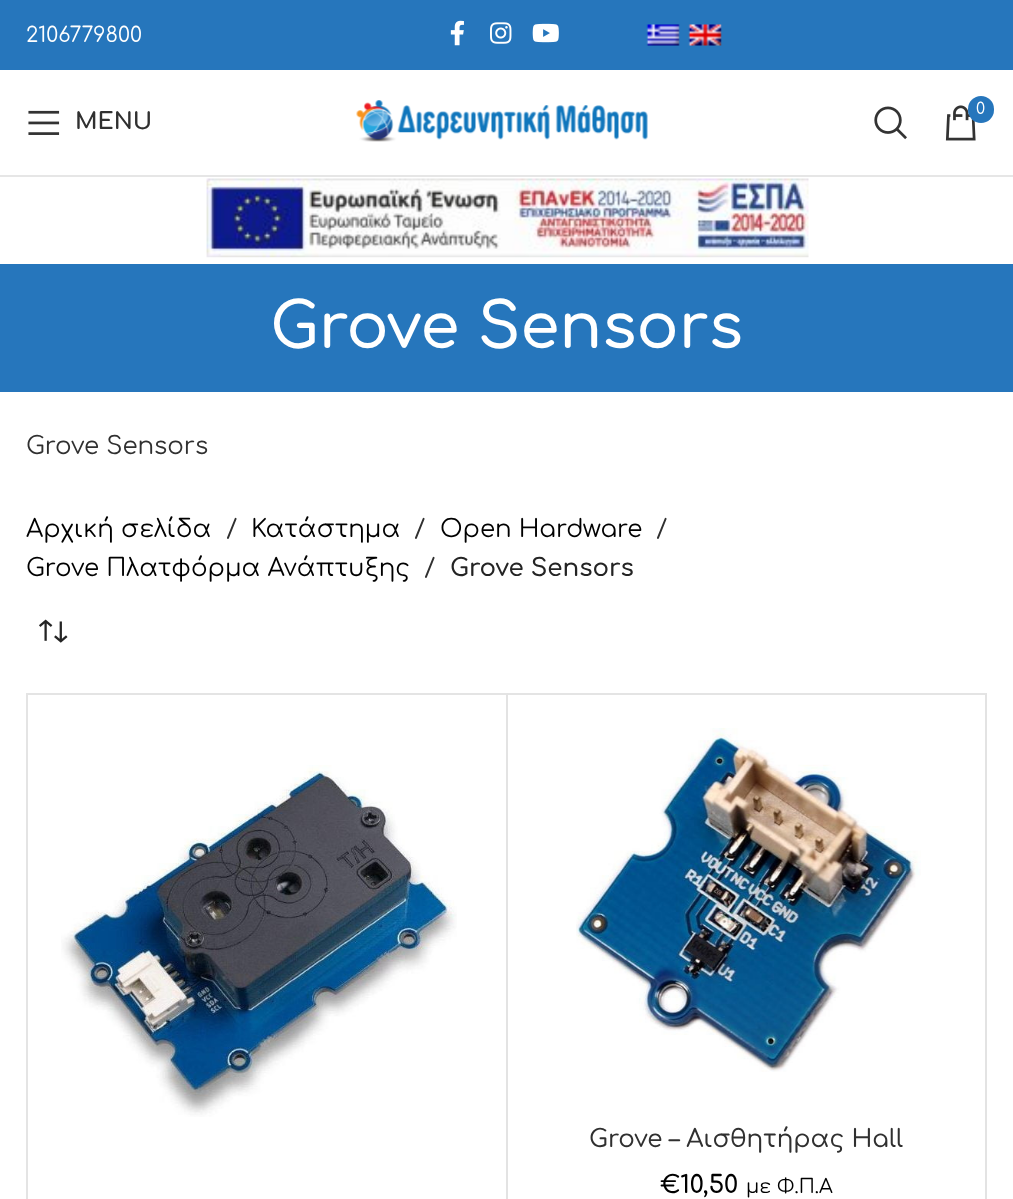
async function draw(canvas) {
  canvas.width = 1013;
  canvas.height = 1199;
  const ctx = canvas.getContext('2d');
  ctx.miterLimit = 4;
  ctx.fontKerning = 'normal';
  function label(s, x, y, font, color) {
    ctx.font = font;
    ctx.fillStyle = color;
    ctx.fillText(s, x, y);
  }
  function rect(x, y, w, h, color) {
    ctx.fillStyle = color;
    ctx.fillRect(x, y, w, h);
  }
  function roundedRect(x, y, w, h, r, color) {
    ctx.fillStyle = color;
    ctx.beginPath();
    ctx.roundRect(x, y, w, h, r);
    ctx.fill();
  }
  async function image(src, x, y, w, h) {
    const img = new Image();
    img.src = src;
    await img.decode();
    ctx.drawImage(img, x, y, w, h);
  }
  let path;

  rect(0, 0, 1013, 1199, '#fff');
  rect(0, 0, 1013, 70, '#2676bc');
  label('2106779800', 26, 42, '21px Comfortaa', '#fff');
  await image('assets/img1.png', 450, 20, 14, 26);
  await image('assets/img2.png', 490, 22, 22, 22);
  await image('assets/img3.png', 532, 23, 27, 20);
  await image('assets/img4.png', 646, 24, 34, 22);
  await image('assets/img5.png', 688, 24, 34, 22);
  rect(0, 175, 1013, 2, '#e6e6e6');
  await image('assets/img6.png', 356, 100, 292, 42);
  await image('assets/img7.png', 874, 106, 33, 34);
  await image('assets/img8.png', 945, 105, 31, 36);
  roundedRect(968, 96, 26, 27, 13, '#2676bc');
  label('0', 976, 114, '16px Comfortaa', '#fff');
  await image('assets/img9.png', 28, 110, 32, 25);
  label('MENU', 75, 129, 'bold 23px Comfortaa', '#303030');
  await image('assets/img10.png', 206, 178, 603, 80);
  rect(0, 264, 1013, 128, '#2676bc');
  label('Grove Sensors', 270, 348, '600 63px Comfortaa', '#fff');
  label('Grove Sensors', 26, 454, '24.5px Comfortaa', '#303030');
  label('Αρχική σελίδα', 26, 537, '24.5px Comfortaa', '#000');
  label('/', 226, 537, '24.5px Comfortaa', '#303030');
  label('Κατάστημα', 251, 537, '24.5px Comfortaa', '#000');
  label('/', 414, 537, '24.5px Comfortaa', '#303030');
  label('Open Hardware', 440, 537, '24.5px Comfortaa', '#000');
  label('/', 656, 537, '24.5px Comfortaa', '#303030');
  label('Grove Πλατφόρμα Ανάπτυξης', 26, 576, '24.5px Comfortaa', '#000');
  label('/', 424, 576, '24.5px Comfortaa', '#303030');
  label('Grove Sensors', 450, 576, '600 24.5px Comfortaa', '#242424');
  await image('assets/img11.png', 39, 619, 29, 24);
  rect(26, 693, 2, 506, '#e4e4e4');
  path = new Path2D('M28 693H508L506 695H28Z');
  ctx.fill(path);
  ctx.fillStyle = '#0000001c';
  path = new Path2D('M508 693V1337L506 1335V695Z');
  ctx.fill(path);
  await image('assets/img12.png', 61, 765, 396, 352);
  ctx.fillStyle = '#e4e4e4';
  path = new Path2D('M508 693H987L985 695H508Z');
  ctx.fill(path);
  ctx.fillStyle = '#0000001c';
  path = new Path2D('M987 693V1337L985 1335V695Z');
  ctx.fill(path);
  await image('assets/img13.png', 576, 728, 345, 344);
  label('Grove – Αισθητήρας Hall', 589, 1147, '500 24.5px Comfortaa', '#303030');
  label('€10,50', 660, 1193, '600 24.5px Comfortaa', '#000');
  label('με Φ.Π.Α', 746, 1193, '19.5px Comfortaa', '#000');
}

draw(document.querySelector('canvas'));
